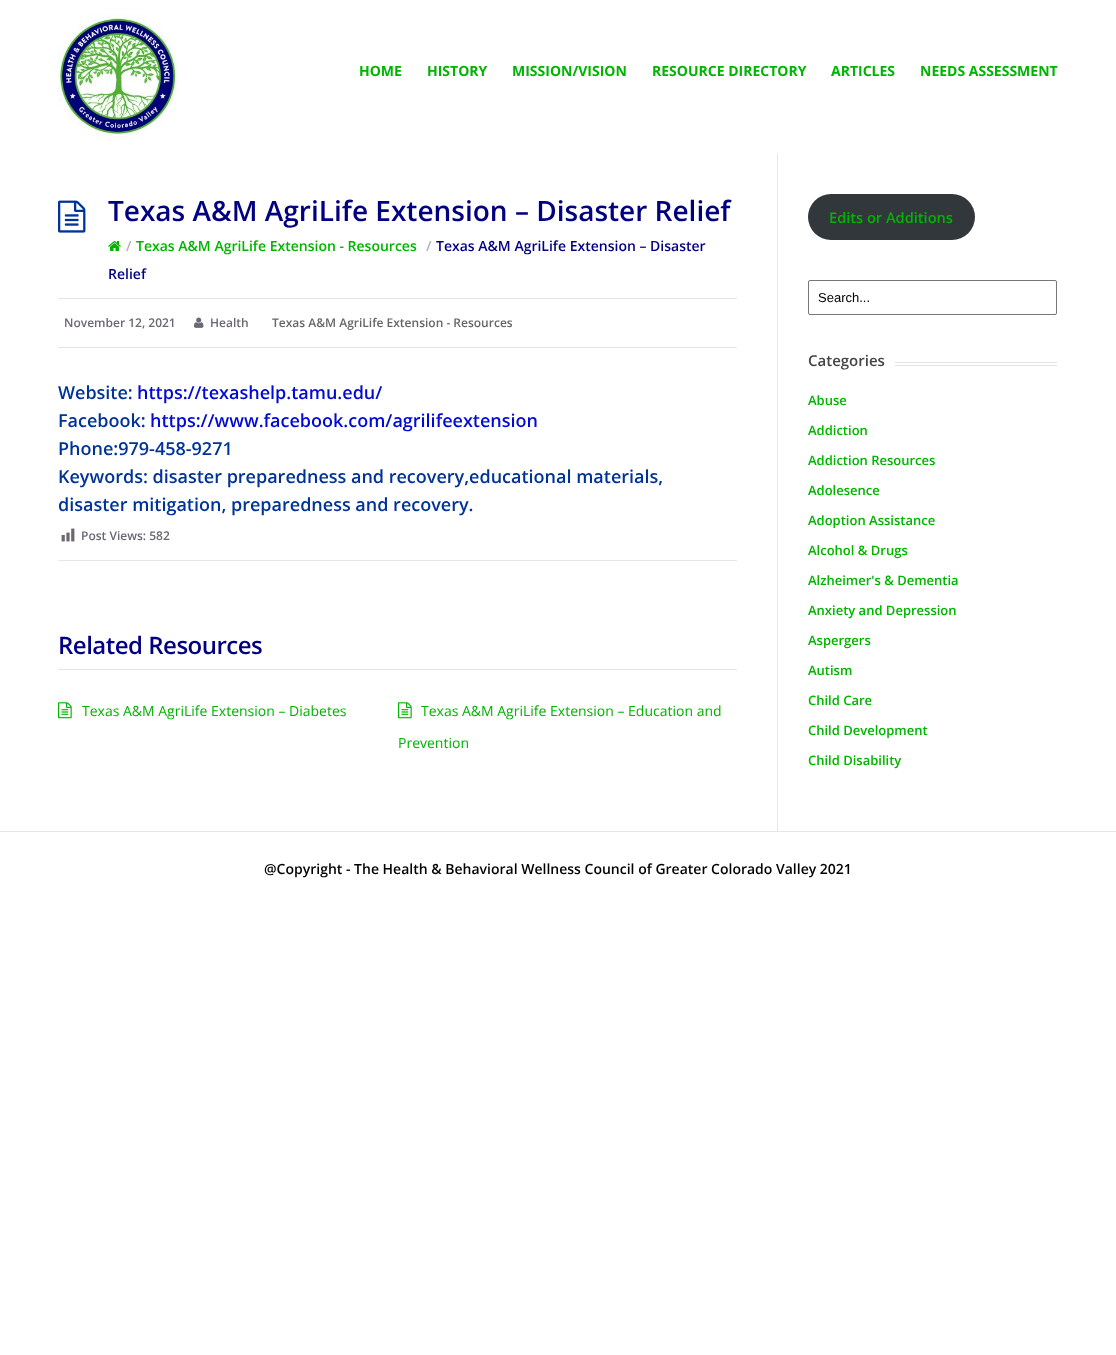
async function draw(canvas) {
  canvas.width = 1116;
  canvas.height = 1355;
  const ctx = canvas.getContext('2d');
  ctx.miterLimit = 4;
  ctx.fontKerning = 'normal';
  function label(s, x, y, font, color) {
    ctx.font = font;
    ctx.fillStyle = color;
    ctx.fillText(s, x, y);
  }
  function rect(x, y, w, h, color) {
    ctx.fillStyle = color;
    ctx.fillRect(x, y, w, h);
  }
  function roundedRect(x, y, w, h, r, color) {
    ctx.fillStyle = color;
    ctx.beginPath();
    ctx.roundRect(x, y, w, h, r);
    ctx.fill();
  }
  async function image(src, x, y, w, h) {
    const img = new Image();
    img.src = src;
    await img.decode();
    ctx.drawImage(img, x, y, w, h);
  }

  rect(0, 0, 1116, 1355, '#fff');
  await image('assets/img1.png', 58, 15, 120, 124);
  label('HOME', 359, 76, 'bold 14px Open Sans', '#00b400');
  label('HISTORY', 427, 76, 'bold 14px Open Sans', '#00b400');
  label('MISSION/VISION', 512, 76, 'bold 14px Open Sans', '#00b400');
  label('RESOURCE DIRECTORY', 652, 76, 'bold 14px Open Sans', '#00b400');
  label('ARTICLES', 831, 76, 'bold 14px Open Sans', '#00b400');
  label('NEEDS ASSESSMENT', 920, 76, 'bold 14px Open Sans', '#00b400');
  rect(58, 298, 679, 1, '#e6e6e6');
  await image('assets/img2.png', 58, 200, 28, 33);
  label('Texas A&M AgriLife Extension – Disaster Relief', 108, 221, '600 28px Open Sans', '#000080');
  await image('assets/img3.png', 108, 241, 13, 10);
  label('/', 126, 251, '600 14px Open Sans', '#b3b3b3');
  label('Texas A&M AgriLife Extension - Resources', 136, 251, '600 14px Open Sans', '#00b400');
  label('/', 426, 251, '600 14px Open Sans', '#b3b3b3');
  label('Texas A&M AgriLife Extension – Disaster', 436, 251, '600 14px Open Sans', '#000080');
  label('Relief', 108, 279, '600 14px Open Sans', '#000080');
  rect(58, 347, 679, 1, '#e6e6e6');
  label('November 12, 2021', 64, 327, '600 12px Open Sans', '#6b6773');
  await image('assets/img4.png', 194, 317, 10, 11);
  label('Health', 210, 327, '600 12px Open Sans', '#6b6773');
  label('Texas A&M AgriLife Extension - Resources', 272, 327, '600 12px Open Sans', '#666');
  label('Website:', 58, 399, '600 18px Open Sans', '#039');
  label('https://texashelp.tamu.edu/', 137, 399, '600 18px Open Sans', '#000ad6');
  label('Facebook:', 58, 427, '600 18px Open Sans', '#039');
  label('https://www.facebook.com/agrilifeextension', 150, 427, '600 18px Open Sans', '#000ad6');
  label('Phone:979-458-9271', 58, 455, '600 18px Open Sans', '#039');
  label('Keywords: disaster preparedness and recovery,educational materials,', 58, 483, '600 18px Open Sans', '#039');
  label('disaster mitigation, preparedness and recovery.', 58, 511, '600 18px Open Sans', '#039');
  rect(58, 560, 679, 1, '#e6e6e6');
  await image('assets/img5.png', 61, 528, 14, 14);
  label('Post Views: 582', 81, 540, '600 12px Open Sans', '#6b6773');
  rect(58, 669, 679, 1, '#e6e6e6');
  ctx.letterSpacing = '-0.5px';
  label('Related Resources', 58, 654, '600 24px Open Sans', '#000080');
  await image('assets/img6.png', 58, 702, 14, 17);
  ctx.letterSpacing = '0px';
  label('Texas A&M AgriLife Extension – Diabetes', 82, 716, '14px Open Sans', '#00b400');
  await image('assets/img6.png', 398, 702, 14, 17);
  label('Texas A&M AgriLife Extension – Education and', 421, 716, '14px Open Sans', '#00b400');
  label('Prevention', 398, 748, '14px Open Sans', '#00b400');
  rect(777, 154, 1, 677, '#e6e6e6');
  roundedRect(808, 194, 167, 46, 23, '#32373c');
  label('Edits or Additions', 829, 223, '600 14.6px Open Sans', '#00b400');
  ctx.beginPath();
  ctx.roundRect(808.5, 280.5, 248, 34, 1.5);
  ctx.strokeStyle = '#767676';
  ctx.stroke();
  label('Search...', 818, 302, '13px Liberation Sans', '#000');
  rect(895, 362, 162, 1, '#e5e5e5');
  rect(895, 365, 162, 1, '#e5e5e5');
  label('Categories', 808, 366, '600 15px Open Sans', '#444');
  label('Abuse', 808, 405, '600 13px Open Sans', '#00b400');
  label('Addiction', 808, 435, '600 13px Open Sans', '#00b400');
  label('Addiction Resources', 808, 465, '600 13px Open Sans', '#00b400');
  label('Adolesence', 808, 495, '600 13px Open Sans', '#00b400');
  label('Adoption Assistance', 808, 525, '600 13px Open Sans', '#00b400');
  label('Alcohol & Drugs', 808, 555, '600 13px Open Sans', '#00b400');
  label('Alzheimer\'s & Dementia', 808, 585, '600 13px Open Sans', '#00b400');
  label('Anxiety and Depression', 808, 615, '600 13px Open Sans', '#00b400');
  label('Aspergers', 808, 645, '600 13px Open Sans', '#00b400');
  label('Autism', 808, 675, '600 13px Open Sans', '#00b400');
  label('Child Care', 808, 705, '600 13px Open Sans', '#00b400');
  label('Child Development', 808, 735, '600 13px Open Sans', '#00b400');
  label('Child Disability', 808, 765, '600 13px Open Sans', '#00b400');
  rect(0, 831, 1116, 1, '#e6e6e6');
  label('@Copyright - The Health & Behavioral Wellness Council of Greater Colorado Valley 2021', 264, 874, '600 14px Open Sans', '#000');
}

draw(document.querySelector('canvas'));
